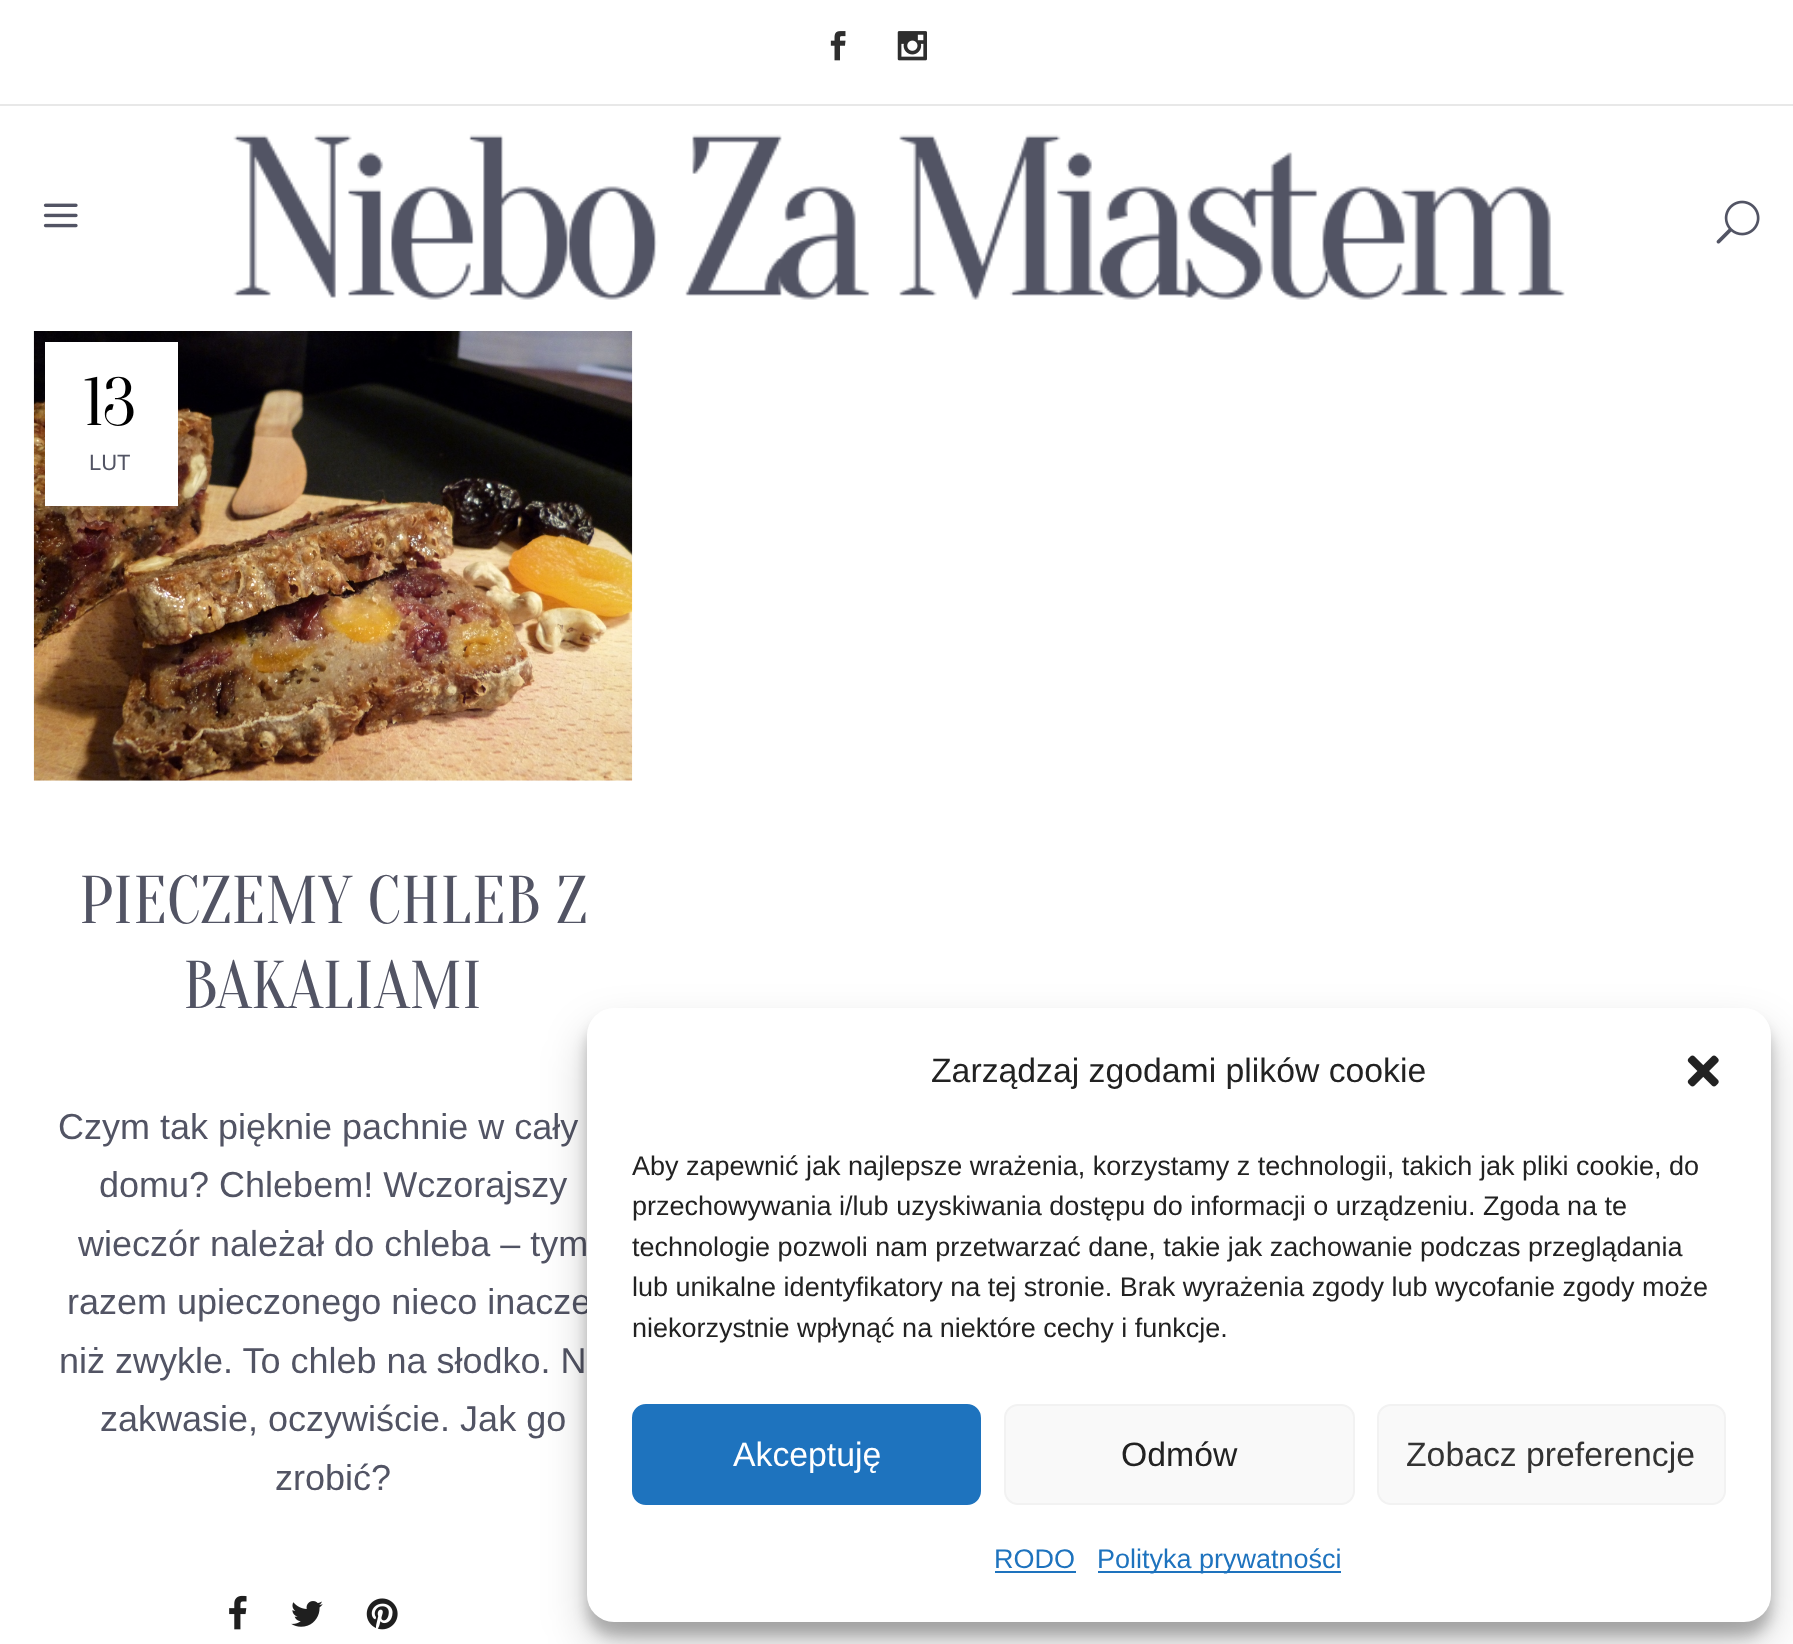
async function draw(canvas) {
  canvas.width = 1793;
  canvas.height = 1644;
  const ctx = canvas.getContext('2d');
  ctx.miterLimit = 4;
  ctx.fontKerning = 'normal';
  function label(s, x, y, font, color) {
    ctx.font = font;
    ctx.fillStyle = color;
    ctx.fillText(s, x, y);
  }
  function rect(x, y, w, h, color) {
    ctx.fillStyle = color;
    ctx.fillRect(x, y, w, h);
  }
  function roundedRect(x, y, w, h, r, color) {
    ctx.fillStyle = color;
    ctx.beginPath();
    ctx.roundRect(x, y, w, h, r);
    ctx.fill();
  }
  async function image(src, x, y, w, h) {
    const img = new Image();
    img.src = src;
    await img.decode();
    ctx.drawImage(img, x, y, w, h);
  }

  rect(0, 0, 1793, 1644, '#fff');
  rect(0, 104, 1793, 2, '#e8e8e8');
  await image('assets/img1.png', 830, 31, 16, 30);
  await image('assets/img2.png', 897, 31, 30, 30);
  await image('assets/img3.png', 43, 203, 35, 25);
  await image('assets/img4.png', 233, 134, 1332, 166);
  await image('assets/img5.png', 1716, 200, 44, 44);
  await image('assets/img6.png', 33, 331, 600, 450);
  rect(45, 342, 133, 164, '#fff');
  label('13', 84, 425, '67.5px Oranienbaum', '#000');
  label('LUT', 89, 470, '22px Liberation Sans', '#525464');
  label('PIECZEMY CHLEB Z', 79, 923, '67.5px Oranienbaum', '#525464');
  label('BAKALIAMI', 183, 1008, '67.5px Oranienbaum', '#525464');
  label('Czym tak pięknie pachnie w cały', 58, 1139, '36px Liberation Sans', '#525464');
  label('domu? Chlebem! Wczorajszy', 99, 1197, '36px Liberation Sans', '#525464');
  label('wieczór należał do chleba – tym', 78, 1256, '36px Liberation Sans', '#525464');
  label('razem upieczonego nieco inacze', 67, 1314, '36px Liberation Sans', '#525464');
  label('niż zwykle. To chleb na słodko. N', 59, 1373, '36px Liberation Sans', '#525464');
  label('zakwasie, oczywiście. Jak go', 100, 1431, '36px Liberation Sans', '#525464');
  label('zrobić?', 275, 1490, '36px Liberation Sans', '#525464');
  await image('assets/img7.png', 229, 1595, 18, 35);
  await image('assets/img8.png', 291, 1601, 32, 26);
  await image('assets/img9.png', 366, 1598, 32, 32);
  ctx.fillStyle = '#0000003b';
  ctx.filter = 'blur(7px)';
  ctx.beginPath();
  ctx.roundRect(587, 1022, 1184, 614, 27);
  ctx.fill();
  ctx.filter = 'none';
  ctx.fillStyle = '#00000030';
  ctx.filter = 'blur(22.5px)';
  ctx.beginPath();
  ctx.roundRect(587, 1031, 1184, 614, 27);
  ctx.fill();
  ctx.filter = 'none';
  roundedRect(587, 1008, 1184, 614, 27, '#fff');
  label('Zarządzaj zgodami plików cookie', 931, 1082, '33.75px Liberation Sans', '#222');
  await image('assets/img10.png', 1687, 1055, 32, 32);
  label('Aby zapewnić jak najlepsze wrażenia, korzystamy z technologii, takich jak pliki cookie, do', 632, 1175, '27px Liberation Sans', '#222');
  label('przechowywania i/lub uzyskiwania dostępu do informacji o urządzeniu. Zgoda na te', 632, 1215, '27px Liberation Sans', '#222');
  label('technologie pozwoli nam przetwarzać dane, takie jak zachowanie podczas przeglądania', 632, 1256, '27px Liberation Sans', '#222');
  label('lub unikalne identyfikatory na tej stronie. Brak wyrażenia zgody lub wycofanie zgody może', 632, 1296, '27px Liberation Sans', '#222');
  label('niekorzystnie wpłynąć na niektóre cechy i funkcje.', 632, 1337, '27px Liberation Sans', '#222');
  ctx.fillStyle = '#1e73be';
  ctx.beginPath();
  ctx.roundRect(633, 1405, 347, 99, 13);
  ctx.fill();
  ctx.strokeStyle = '#1e73be';
  ctx.lineWidth = 2;
  ctx.stroke();
  label('Akceptuję', 733, 1466, '33.75px Liberation Sans', '#fff');
  ctx.fillStyle = '#f9f9f9';
  ctx.beginPath();
  ctx.roundRect(1005, 1405, 349, 99, 13);
  ctx.fill();
  ctx.strokeStyle = '#f2f2f2';
  ctx.stroke();
  label('Odmów', 1121, 1466, '33.75px Liberation Sans', '#222');
  ctx.fillStyle = '#f9f9f9';
  ctx.beginPath();
  ctx.roundRect(1378, 1405, 347, 99, 13);
  ctx.fill();
  ctx.stroke();
  label('Zobacz preferencje', 1406, 1466, '33.75px Liberation Sans', '#333');
  label('RODO', 994, 1568, '27px Liberation Sans', '#1e73be');
  rect(995, 1571, 81, 2, '#1e73be');
  rect(1098, 1571, 243, 2, '#1e73be');
  label('Polityka prywatności', 1097, 1568, '27px Liberation Sans', '#1e73be');
}

draw(document.querySelector('canvas'));
